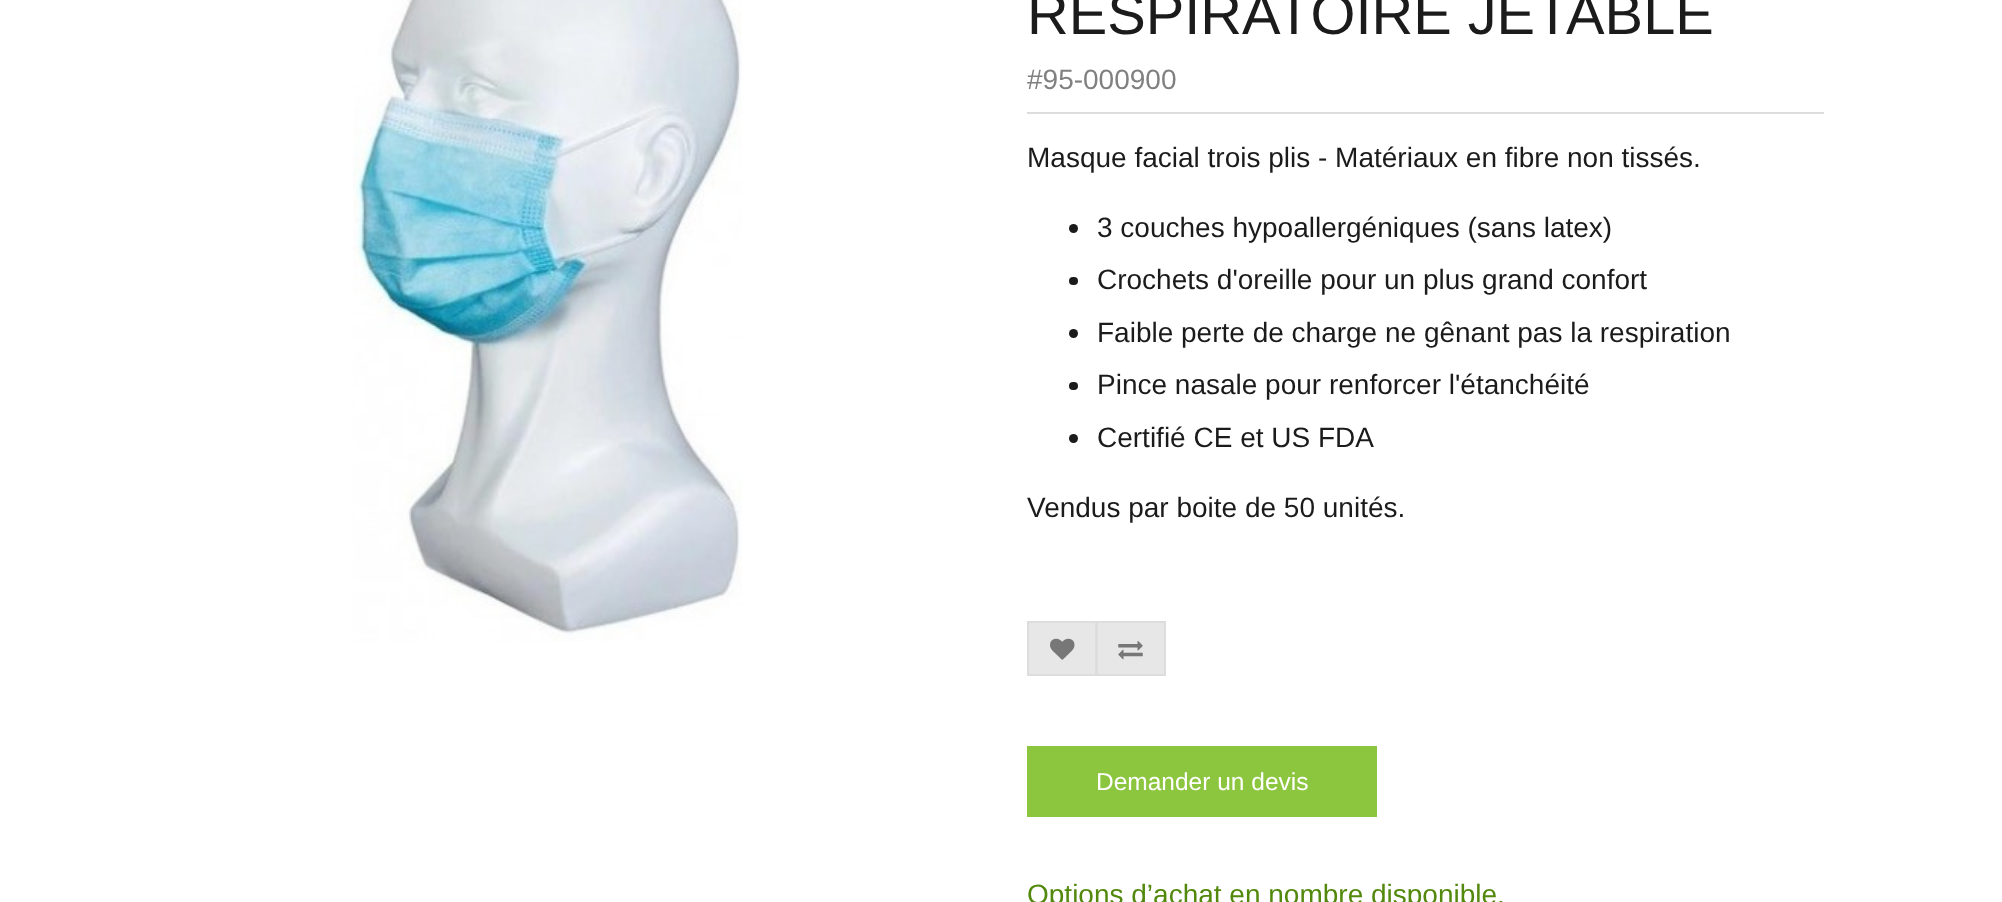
async function draw(canvas) {
  canvas.width = 2002;
  canvas.height = 902;
  const ctx = canvas.getContext('2d');
  ctx.miterLimit = 4;
  ctx.fontKerning = 'normal';
  function label(s, x, y, font, color) {
    ctx.font = font;
    ctx.fillStyle = color;
    ctx.fillText(s, x, y);
  }
  function rect(x, y, w, h, color) {
    ctx.fillStyle = color;
    ctx.fillRect(x, y, w, h);
  }
  function roundedRect(x, y, w, h, r, color) {
    ctx.fillStyle = color;
    ctx.beginPath();
    ctx.roundRect(x, y, w, h, r);
    ctx.fill();
  }
  async function image(src, x, y, w, h) {
    const img = new Image();
    img.src = src;
    await img.decode();
    ctx.drawImage(img, x, y, w, h);
  }

  rect(0, 0, 2002, 902, '#fff');
  await image('assets/img1.png', 353, 0, 389, 642);
  rect(1027, 112, 797, 2, '#ddd');
  label('RESPIRATOIRE JETABLE', 1027, 34, '57.75px Liberation Sans', '#1b1b1b');
  label('#95-000900', 1027, 89, '28px Liberation Sans', '#808080');
  label('Masque facial trois plis - Matériaux en fibre non tissés.', 1027, 167, '28px Liberation Sans', '#1b1b1b');
  ctx.beginPath();
  ctx.arc(1073.5, 228.5, 4.5, 0, 2 * Math.PI);
  ctx.fill();
  label('3 couches hypoallergéniques (sans latex)', 1097, 237, '28px Liberation Sans', '#1b1b1b');
  roundedRect(1069, 277, 9, 8, 4, '#1b1b1b');
  label('Crochets d\'oreille pour un plus grand confort', 1097, 289, '28px Liberation Sans', '#1b1b1b');
  ctx.beginPath();
  ctx.arc(1073.5, 333.5, 4.5, 0, 2 * Math.PI);
  ctx.fill();
  label('Faible perte de charge ne gênant pas la respiration', 1097, 342, '28px Liberation Sans', '#1b1b1b');
  roundedRect(1069, 382, 9, 8, 4, '#1b1b1b');
  label('Pince nasale pour renforcer l\'étanchéité', 1097, 394, '28px Liberation Sans', '#1b1b1b');
  ctx.beginPath();
  ctx.arc(1073.5, 438.5, 4.5, 0, 2 * Math.PI);
  ctx.fill();
  label('Certifié CE et US FDA', 1097, 447, '28px Liberation Sans', '#1b1b1b');
  label('Vendus par boite de 50 unités.', 1027, 517, '28px Liberation Sans', '#1b1b1b');
  ctx.fillStyle = '#e7e7e7';
  ctx.beginPath();
  ctx.rect(1028, 622, 68, 53);
  ctx.fill();
  ctx.strokeStyle = '#ddd';
  ctx.lineWidth = 2;
  ctx.stroke();
  await image('assets/img2.png', 1050, 638, 25, 22);
  ctx.beginPath();
  ctx.rect(1097, 622, 68, 53);
  ctx.fill();
  ctx.stroke();
  await image('assets/img3.png', 1118, 641, 25, 19);
  rect(1027, 746, 350, 71, '#8cc63f');
  label('Demander un devis', 1096, 790, '24.5px Liberation Sans', '#fff');
  label('Options d’achat en nombre disponible.', 1027, 904, '28px Liberation Sans', '#52880b');
}

draw(document.querySelector('canvas'));
